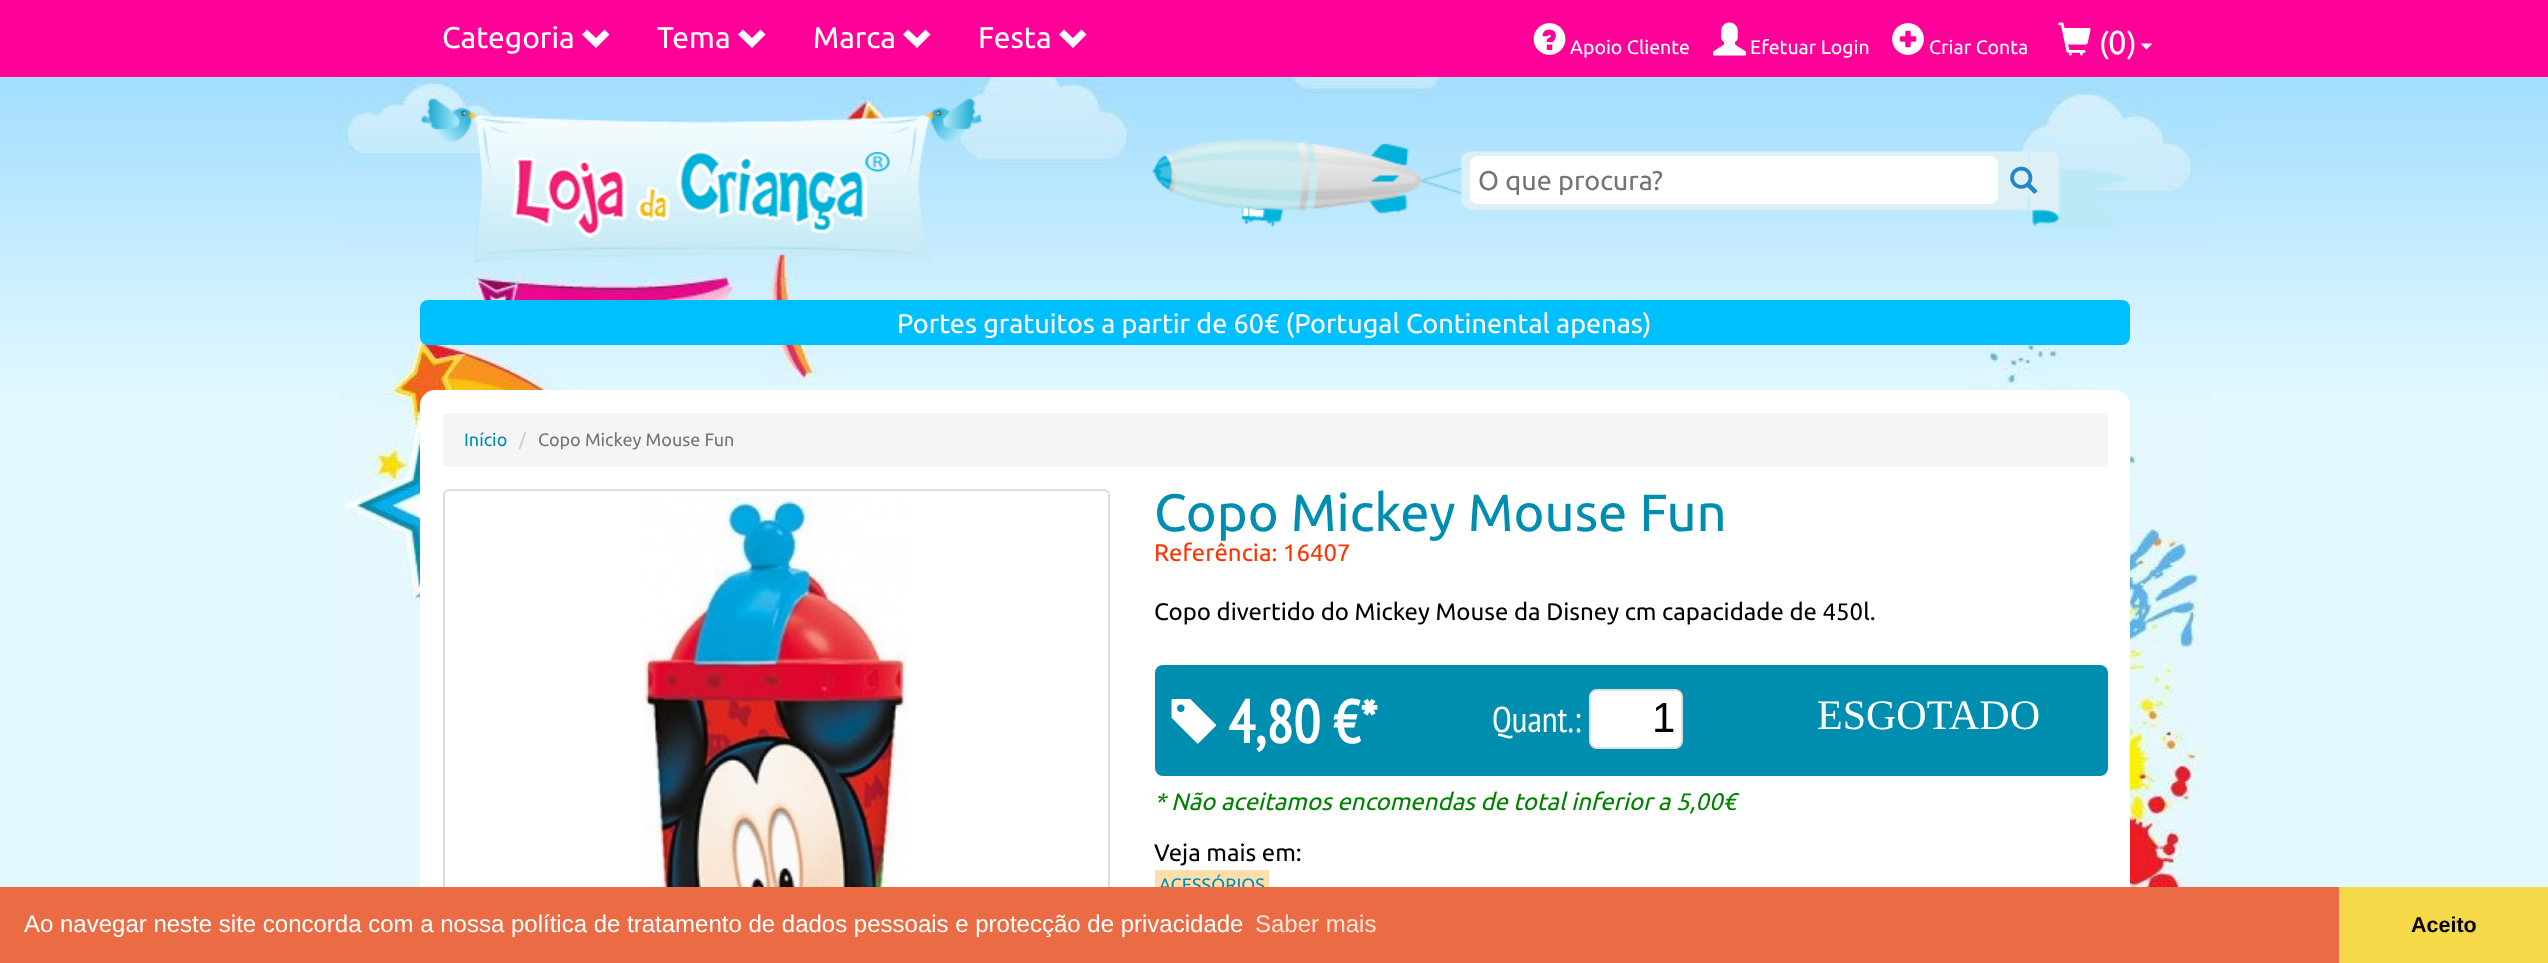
async function draw(canvas) {
  canvas.width = 2548;
  canvas.height = 963;
  const ctx = canvas.getContext('2d');
  ctx.miterLimit = 4;
  ctx.fontKerning = 'normal';
  function label(s, x, y, font, color) {
    ctx.font = font;
    ctx.fillStyle = color;
    ctx.fillText(s, x, y);
  }
  function rect(x, y, w, h, color) {
    ctx.fillStyle = color;
    ctx.fillRect(x, y, w, h);
  }
  function roundedRect(x, y, w, h, r, color) {
    ctx.fillStyle = color;
    ctx.beginPath();
    ctx.roundRect(x, y, w, h, r);
    ctx.fill();
  }
  async function image(src, x, y, w, h) {
    const img = new Image();
    img.src = src;
    await img.decode();
    ctx.drawImage(img, x, y, w, h);
  }
  let path;

  rect(0, 0, 2548, 963, '#e4f9ff');
  await image('assets/img1.png', 0, 77, 2548, 314);
  await image('assets/img2.png', 338, 77, 1874, 810);
  rect(0, 0, 2548, 77, '#f09');
  label('Categoria', 442, 48, '30px Ubuntu', '#fff');
  path = new Path2D('M609.5 34.5L596 48L582 34.5L587 29.5L596 38L604.5 29.5Z');
  ctx.fill(path);
  label('Tema', 657, 48, '30px Ubuntu', '#fff');
  path = new Path2D('M765.5 34.5L752 48L738 34.5L743 29.5L752 38L760.5 29.5Z');
  ctx.fill(path);
  label('Marca', 813, 48, '30px Ubuntu', '#fff');
  path = new Path2D('M930.5 34.5L917 48L903 34.5L908 29.5L917 38L925.5 29.5Z');
  ctx.fill(path);
  label('Festa', 978, 48, '30px Ubuntu', '#fff');
  path = new Path2D('M1086.5 34.5L1073 48L1059 34.5L1064 29.5L1073 38L1081.5 29.5Z');
  ctx.fill(path);
  await image('assets/img3.png', 1533, 23, 33, 32);
  label('Apoio Cliente', 1570, 54, '19.5px Ubuntu', '#fff');
  await image('assets/img4.png', 1713, 22, 33, 34);
  label('Efetuar Login', 1750, 54, '19.5px Ubuntu', '#fff');
  await image('assets/img5.png', 1892, 23, 32, 32);
  label('Criar Conta', 1929, 54, '19.5px Ubuntu', '#fff');
  await image('assets/img6.png', 2058, 22, 33, 34);
  label('(', 2099, 54, '30px Ubuntu', '#fff');
  label('0', 2108, 54, '33px Ubuntu', '#fff');
  label(')', 2127, 54, '30px Ubuntu', '#fff');
  path = new Path2D('M2140.5 43.5H2152.5L2146.5 49.5Z');
  ctx.fill(path);
  await image('assets/img7.png', 420, 98, 267, 165);
  await image('assets/img8.png', 687, 97, 296, 164);
  await image('assets/img9.png', 510, 149, 380, 89);
  await image('assets/img10.png', 1151, 139, 319, 88);
  await image('assets/img11.png', 1470, 151, 558, 60);
  roundedRect(1470, 156, 528, 48, 8, '#fff');
  label('O que procura?', 1478, 190, '27px Ubuntu', '#757575');
  await image('assets/img13.png', 2029, 151, 101, 82);
  rect(2028, 165, 2, 32, '#dcf0f6');
  await image('assets/img12.png', 2010, 166, 28, 28);
  roundedRect(420, 300, 1710, 45, 8, '#00bfff');
  label('Portes gratuitos a partir de 60€ (Portugal Continental apenas)', 897, 333, '27px Ubuntu', '#fff');
  roundedRect(420, 390, 1710, 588, 15, '#fff');
  roundedRect(443, 413, 1665, 54, 6, '#f5f5f5');
  label('Início', 464, 446, '18px Ubuntu', '#008eb0');
  label('/', 519, 446, '18px Ubuntu', '#ccc');
  label('Copo Mickey Mouse Fun', 538, 446, '18px Ubuntu', '#757575');
  ctx.beginPath();
  ctx.roundRect(444, 490, 665, 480, 5);
  ctx.strokeStyle = '#ddd';
  ctx.lineWidth = 2;
  ctx.stroke();
  await image('assets/img14.png', 642, 496, 266, 391);
  label('Copo Mickey Mouse Fun', 1154, 531, '52.5px Ubuntu', '#008eb0');
  label('Referência: 16407', 1154, 561, '24px Ubuntu', '#f30');
  label('Copo divertido do Mickey Mouse da Disney cm capacidade de 450l.', 1154, 620, '24px Ubuntu', '#000');
  roundedRect(1155, 665, 953, 111, 8, '#008eb0');
  await image('assets/img15.png', 1171, 699, 46, 45);
  label('4,80 €*', 1228, 743, 'bold 60px PT Sans Narrow', '#fff');
  label('Quant.:', 1492, 732, '36px PT Sans Narrow', '#fff');
  ctx.beginPath();
  ctx.roundRect(1590, 690, 92, 58, 7);
  ctx.fill();
  ctx.strokeStyle = '#dfdfdf';
  ctx.stroke();
  label('1', 1652, 732, '42px Liberation Sans', '#000');
  label('ESGOTADO', 1817, 729, '42px Liberation Serif', '#fff');
  label('* Não aceitamos encomendas de total inferior a 5,00€', 1154, 810, 'italic 24px Ubuntu', '#008200');
  label('Veja mais em:', 1154, 861, '24px Ubuntu', '#000');
  rect(1155, 870, 114, 17, '#ffdead');
  label('ACESSÓRIOS', 1159, 891, '18px Ubuntu', '#008eb0');
  rect(0, 887, 2339, 76, '#eb6c44');
  label('Ao navegar neste site concorda com a nossa política de tratamento de dados pessoais e protecção de privacidade', 24, 932, '24px Liberation Sans', '#fff');
  label('Saber mais', 1255, 932, '24px Liberation Sans', '#fbe2da');
  rect(2339, 887, 209, 76, '#f5d948');
  label('Aceito', 2411, 932, 'bold 21.5px Liberation Sans', '#000');
}

draw(document.querySelector('canvas'));
